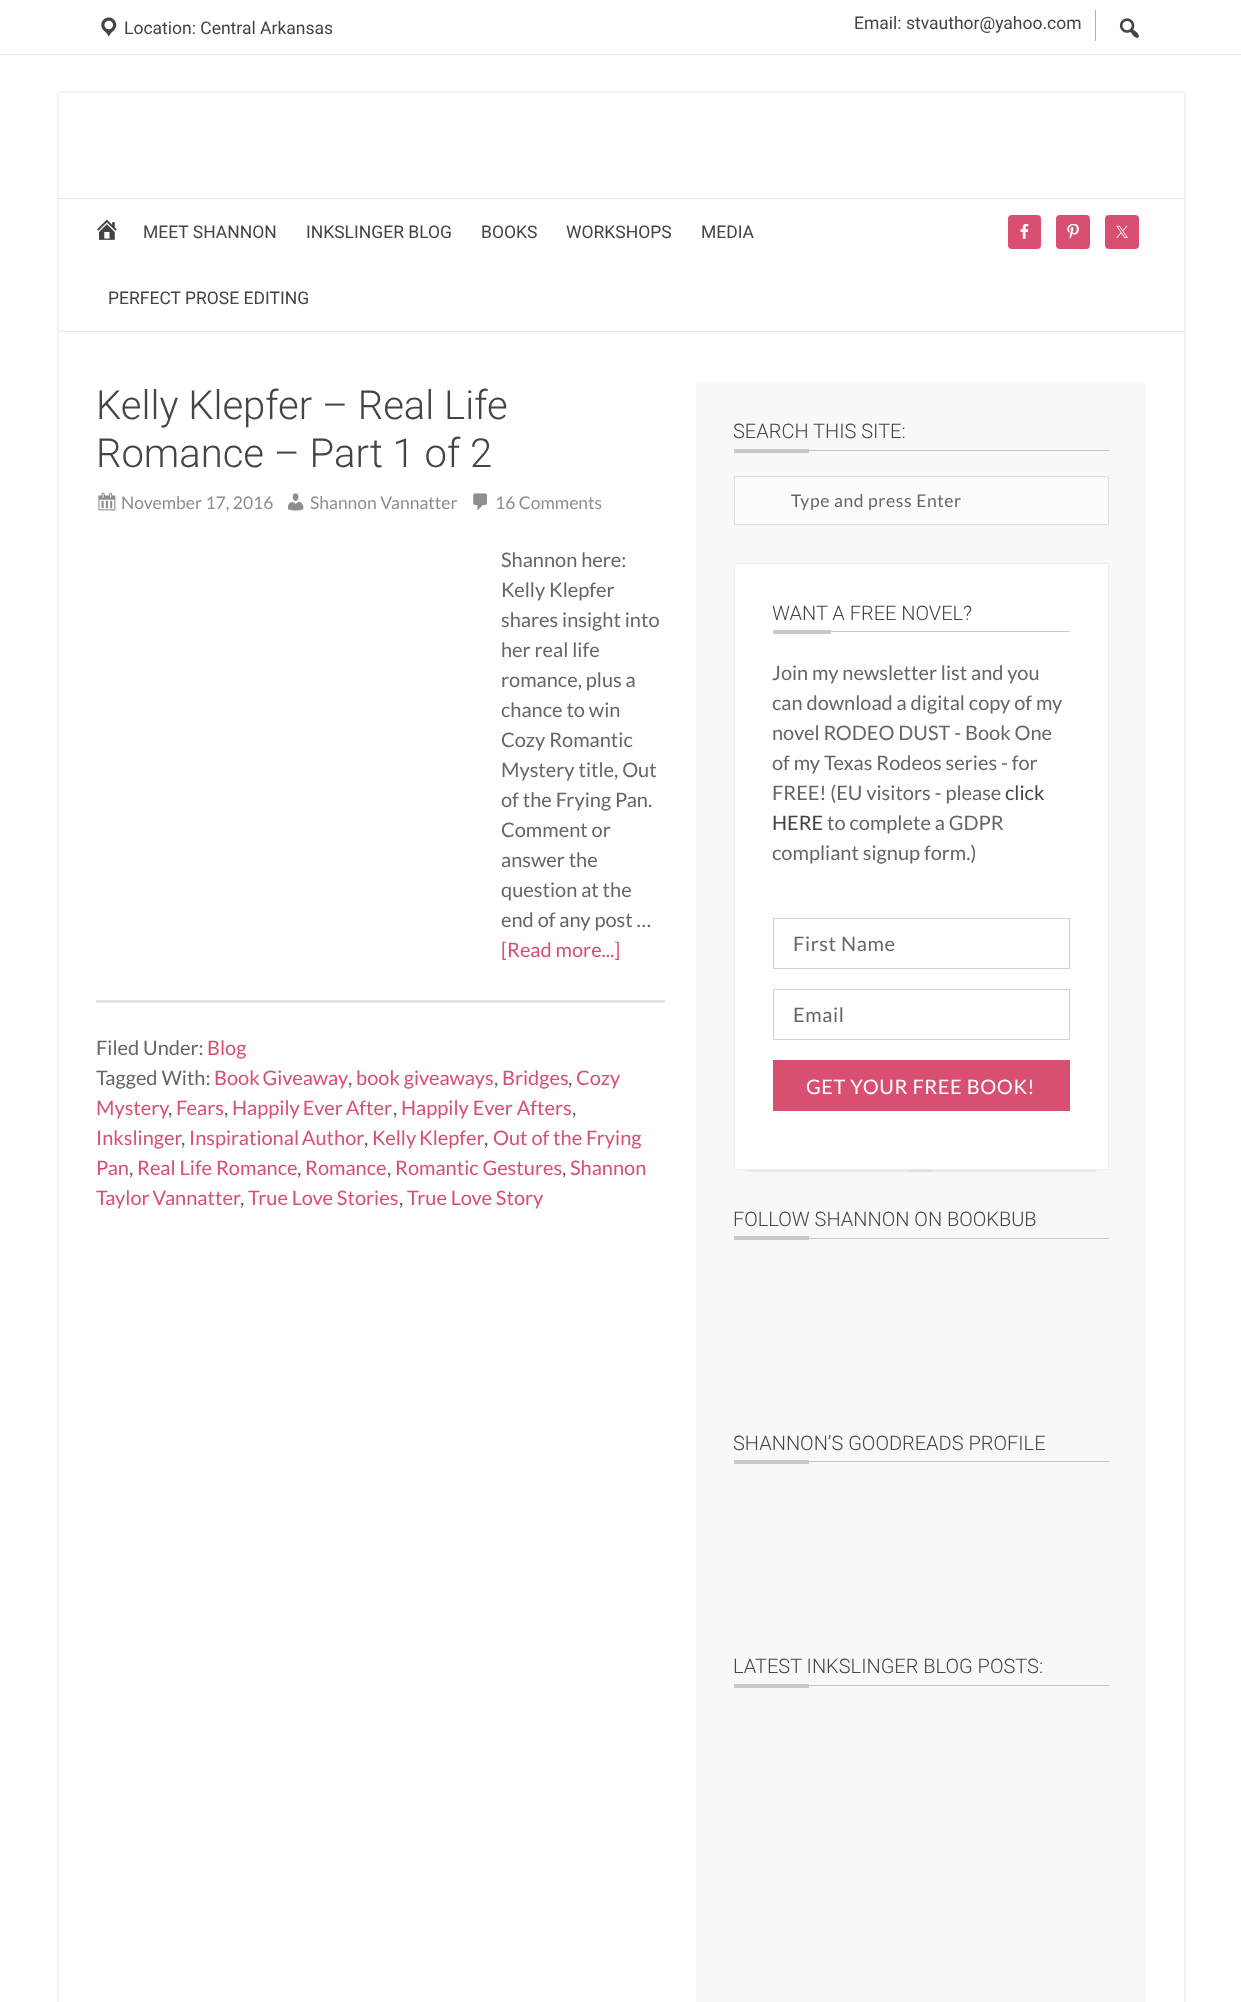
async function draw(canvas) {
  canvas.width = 1241;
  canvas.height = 2002;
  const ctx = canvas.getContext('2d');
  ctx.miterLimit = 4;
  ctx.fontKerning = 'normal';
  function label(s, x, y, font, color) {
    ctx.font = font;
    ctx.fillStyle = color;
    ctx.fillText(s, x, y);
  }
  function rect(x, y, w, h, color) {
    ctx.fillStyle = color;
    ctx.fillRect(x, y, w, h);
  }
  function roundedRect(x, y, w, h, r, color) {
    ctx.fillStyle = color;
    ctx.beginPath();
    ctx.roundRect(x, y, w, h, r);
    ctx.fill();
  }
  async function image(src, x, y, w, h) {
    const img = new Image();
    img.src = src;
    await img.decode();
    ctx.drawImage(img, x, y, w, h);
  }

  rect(0, 0, 1241, 2002, '#fff');
  rect(0, 54, 1241, 1, '#e3e3e3');
  await image('assets/img1.png', 101, 17, 16, 20);
  label('Location: Central Arkansas', 124, 34, '17.5px Roboto', '#444');
  label('Email: stvauthor@yahoo.com', 854, 29, '17.5px Roboto', '#444');
  rect(1095, 10, 1, 31, '#adadad');
  await image('assets/img2.png', 1119, 18, 20, 20);
  ctx.fillStyle = '#ddd';
  ctx.filter = 'blur(2px)';
  ctx.beginPath();
  ctx.rect(59, 93, 1125, 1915);
  ctx.fill();
  ctx.filter = 'none';
  rect(59, 93, 1125, 1909, '#fff');
  rect(59, 198, 1125, 1, '#e3e3e3');
  rect(59, 331, 1125, 1, '#e3e3e3');
  await image('assets/img3.png', 97, 219, 20, 21);
  label('MEET SHANNON', 143, 238, '17.5px Roboto', '#444');
  label('INKSLINGER BLOG', 306, 238, '17.5px Roboto', '#444');
  label('BOOKS', 481, 238, '17.5px Roboto', '#444');
  label('WORKSHOPS', 566, 238, '17.5px Roboto', '#444');
  label('MEDIA', 701, 238, '17.5px Roboto', '#444');
  label('PERFECT PROSE EDITING', 108, 304, '17.5px Roboto', '#444');
  roundedRect(1008, 215, 33, 34, 4, '#d94f71');
  await image('assets/img4.png', 1020, 224, 9, 15);
  roundedRect(1056, 215, 34, 34, 4, '#d94f71');
  await image('assets/img5.png', 1067, 224, 12, 15);
  roundedRect(1105, 215, 34, 34, 4, '#d94f71');
  await image('assets/img6.png', 1116, 225, 12, 13);
  label('Kelly Klepfer – Real Life', 96, 419, '300 40px Roboto', '#444');
  label('Romance – Part 1 of 2', 96, 467, '300 40px Roboto', '#444');
  await image('assets/img7.png', 98, 492, 18, 19);
  label('November 17, 2016', 121, 509, '17.5px Lato', '#8e8e8e');
  await image('assets/img8.png', 287, 493, 17, 18);
  label('Shannon Vannatter', 310, 509, '17.5px Lato', '#8e8e8e');
  await image('assets/img9.png', 473, 493, 14, 18);
  label('16 Comments', 495, 509, '17.5px Lato', '#8e8e8e');
  label('Shannon here:', 501, 567, '20px Lato', '#666');
  label('Kelly Klepfer', 501, 597, '20px Lato', '#666');
  label('shares insight into', 501, 627, '20px Lato', '#666');
  label('her real life', 501, 657, '20px Lato', '#666');
  label('romance, plus a', 501, 687, '20px Lato', '#666');
  label('chance to win', 501, 717, '20px Lato', '#666');
  label('Cozy Romantic', 501, 747, '20px Lato', '#666');
  label('Mystery title, Out', 501, 777, '20px Lato', '#666');
  label('of the Frying Pan.', 501, 807, '20px Lato', '#666');
  label('Comment or', 501, 837, '20px Lato', '#666');
  label('answer the', 501, 867, '20px Lato', '#666');
  label('question at the', 501, 897, '20px Lato', '#666');
  label('end of any post …', 501, 927, '20px Lato', '#666');
  label('[Read more...]', 501, 957, '20px Lato', '#d94f71');
  rect(96, 1000, 569, 3, '#e3e3e3');
  label('Filed Under:', 96, 1055, '20px Lato', '#666');
  label('Blog', 207, 1055, '20px Lato', '#d94f71');
  label('Tagged With:', 96, 1085, '20px Lato', '#666');
  ctx.wordSpacing = '-1px';
  label('Book Giveaway', 214, 1085, '20px Lato', '#d94f71');
  ctx.wordSpacing = '0px';
  label(',', 348, 1085, '20px Lato', '#666');
  label('book giveaways', 356, 1085, '20px Lato', '#d94f71');
  label(',', 494, 1085, '20px Lato', '#666');
  label('Bridges', 502, 1085, '20px Lato', '#d94f71');
  label(',', 568, 1085, '20px Lato', '#666');
  label('Cozy', 576, 1085, '20px Lato', '#d94f71');
  label('Mystery', 96, 1115, '20px Lato', '#d94f71');
  label(',', 168, 1115, '20px Lato', '#666');
  label('Fears', 176, 1115, '20px Lato', '#d94f71');
  label(',', 224, 1115, '20px Lato', '#666');
  ctx.wordSpacing = '-1px';
  label('Happily Ever After', 232, 1115, '20px Lato', '#d94f71');
  ctx.wordSpacing = '0px';
  label(',', 393, 1115, '20px Lato', '#666');
  label('Happily Ever Afters', 401, 1115, '20px Lato', '#d94f71');
  label(',', 572, 1115, '20px Lato', '#666');
  label('Inkslinger', 96, 1145, '20px Lato', '#d94f71');
  label(',', 181, 1145, '20px Lato', '#666');
  ctx.wordSpacing = '-1px';
  label('Inspirational Author', 189, 1145, '20px Lato', '#d94f71');
  ctx.wordSpacing = '0px';
  label(',', 364, 1145, '20px Lato', '#666');
  ctx.wordSpacing = '-1px';
  label('Kelly Klepfer', 372, 1145, '20px Lato', '#d94f71');
  ctx.wordSpacing = '0px';
  label(',', 484, 1145, '20px Lato', '#666');
  label('Out of the Frying', 493, 1145, '20px Lato', '#d94f71');
  label('Pan', 96, 1175, '20px Lato', '#d94f71');
  label(',', 129, 1175, '20px Lato', '#666');
  label('Real Life Romance', 137, 1175, '20px Lato', '#d94f71');
  label(',', 297, 1175, '20px Lato', '#666');
  label('Romance', 305, 1175, '20px Lato', '#d94f71');
  label(',', 387, 1175, '20px Lato', '#666');
  label('Romantic Gestures', 395, 1175, '20px Lato', '#d94f71');
  label(',', 562, 1175, '20px Lato', '#666');
  label('Shannon', 570, 1175, '20px Lato', '#d94f71');
  ctx.wordSpacing = '-1px';
  label('Taylor Vannatter', 96, 1205, '20px Lato', '#d94f71');
  ctx.wordSpacing = '0px';
  label(',', 240, 1205, '20px Lato', '#666');
  label('True Love Stories', 248, 1205, '20px Lato', '#d94f71');
  label(',', 399, 1205, '20px Lato', '#666');
  label('True Love Story', 407, 1205, '20px Lato', '#d94f71');
  rect(696, 383, 450, 1619, '#f8f8f8');
  rect(809, 450, 300, 1, '#c8c8c8');
  label('SEARCH THIS SITE:', 733, 438, '300 20px Roboto', '#444');
  rect(734, 449, 75, 4, '#c8c8c8');
  ctx.fillStyle = '#fcfcfc';
  ctx.beginPath();
  ctx.rect(734.5, 476.5, 374, 48);
  ctx.fill();
  ctx.strokeStyle = '#ddd';
  ctx.stroke();
  ctx.letterSpacing = '0.6px';
  label('Type and press Enter', 791, 507, '17.5px Lato', '#666');
  ctx.fillStyle = '#c3c3c3';
  ctx.filter = 'blur(1.5px)';
  ctx.beginPath();
  ctx.rect(745, 1055, 188, 115);
  ctx.fill();
  ctx.filter = 'none';
  ctx.filter = 'blur(1.5px)';
  ctx.beginPath();
  ctx.rect(909, 1061, 187, 109);
  ctx.fill();
  ctx.filter = 'none';
  ctx.fillStyle = '#fff';
  ctx.beginPath();
  ctx.rect(734.5, 563.5, 374, 606);
  ctx.fill();
  ctx.strokeStyle = '#efefef';
  ctx.stroke();
  rect(831, 631, 239, 1, '#c8c8c8');
  ctx.letterSpacing = '0px';
  label('WANT A FREE NOVEL?', 772, 620, '300 20px Roboto', '#444');
  rect(773, 630, 58, 4, '#c8c8c8');
  label('Join my newsletter list and you', 772, 680, '20px Lato', '#666');
  label('can download a digital copy of my', 772, 710, '20px Lato', '#666');
  label('novel RODEO DUST - Book One', 772, 740, '20px Lato', '#666');
  label('of my Texas Rodeos series - for', 772, 770, '20px Lato', '#666');
  label('FREE! (EU visitors - please', 772, 800, '20px Lato', '#666');
  label('click', 1005, 800, '20px Lato', '#444');
  label('HERE', 772, 830, '20px Lato', '#444');
  label('to complete a GDPR', 827, 830, '20px Lato', '#666');
  label('compliant signup form.)', 772, 860, '20px Lato', '#666');
  ctx.strokeStyle = '#d3d3d3';
  ctx.strokeRect(773.5, 918.5, 296, 50);
  ctx.letterSpacing = '0.6px';
  label('First Name', 793, 951, '20px Lato', '#666');
  ctx.strokeRect(773.5, 989.5, 296, 50);
  label('Email', 793, 1022, '20px Lato', '#666');
  rect(773, 1060, 297, 51, '#d94f71');
  label('GET YOUR FREE BOOK!', 806, 1094, '20px Lato', '#fff');
  rect(809, 1238, 300, 1, '#c8c8c8');
  ctx.letterSpacing = '0px';
  label('FOLLOW SHANNON ON BOOKBUB', 733, 1226, '300 20px Roboto', '#444');
  rect(734, 1236, 75, 4, '#c8c8c8');
  rect(809, 1461, 300, 1, '#c8c8c8');
  label('SHANNON’S GOODREADS PROFILE', 733, 1450, '300 20px Roboto', '#444');
  rect(734, 1460, 75, 4, '#c8c8c8');
  rect(809, 1685, 300, 1, '#c8c8c8');
  label('LATEST INKSLINGER BLOG POSTS:', 733, 1673, '300 20px Roboto', '#444');
  rect(734, 1684, 75, 4, '#c8c8c8');
}

draw(document.querySelector('canvas'));
